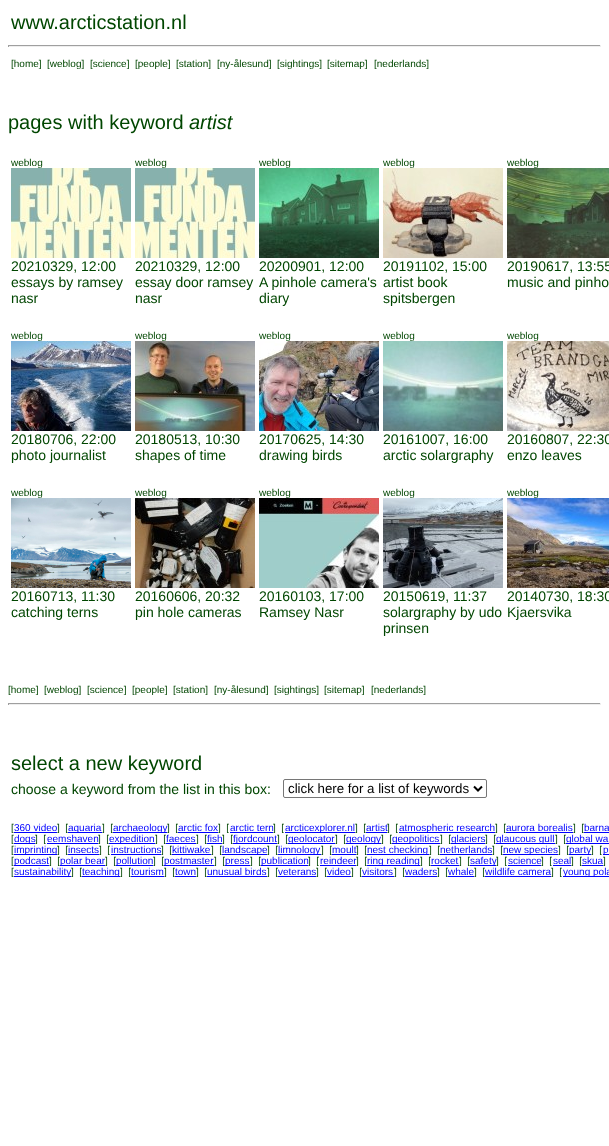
async function draw(canvas) {
  canvas.width = 609;
  canvas.height = 1146;
  const ctx = canvas.getContext('2d');
  ctx.miterLimit = 4;
  ctx.fontKerning = 'normal';
  function label(s, x, y, font, color) {
    ctx.font = font;
    ctx.fillStyle = color;
    ctx.fillText(s, x, y);
  }
  function rect(x, y, w, h, color) {
    ctx.fillStyle = color;
    ctx.fillRect(x, y, w, h);
  }
  async function image(src, x, y, w, h) {
    const img = new Image();
    img.src = src;
    await img.decode();
    ctx.drawImage(img, x, y, w, h);
  }
  let path;

  rect(0, 0, 609, 1146, '#fff');
  label('www.arcticstation.nl', 11, 29, '20px Liberation Sans', '#004600');
  rect(8, 45, 593, 1, '#9f9f9f');
  rect(600, 45, 1, 2, '#eee');
  rect(8, 46, 593, 1, '#eee');
  rect(8, 45, 1, 2, '#9f9f9f');
  label('[home]', 11, 67, '10px Liberation Sans', '#004600');
  label('[weblog]', 47, 67, '10px Liberation Sans', '#004600');
  label('[science]', 90, 67, '10px Liberation Sans', '#004600');
  label('[people]', 135, 67, '10px Liberation Sans', '#004600');
  label('[station]', 176, 67, '10px Liberation Sans', '#004600');
  label('[ny-ålesund]', 217, 67, '10px Liberation Sans', '#004600');
  label('[sightings]', 277, 67, '10px Liberation Sans', '#004600');
  label('[sitemap]', 327, 67, '10px Liberation Sans', '#004600');
  label('[nederlands]', 374, 67, '10px Liberation Sans', '#004600');
  label('pages with keyword', 8, 129, '20px Liberation Sans', '#004600');
  label('artist', 189, 129, 'italic 20px Liberation Sans', '#004600');
  label('weblog', 11, 166, '10px Liberation Sans', '#004600');
  await image('assets/img1.png', 11, 168, 120, 90);
  label('20210329, 12:00', 11, 271, '14px Liberation Sans', '#004600');
  label('essays by ramsey', 11, 287, '14px Liberation Sans', '#004600');
  label('nasr', 11, 303, '14px Liberation Sans', '#004600');
  label('weblog', 135, 166, '10px Liberation Sans', '#004600');
  await image('assets/img1.png', 135, 168, 120, 90);
  label('20210329, 12:00', 135, 271, '14px Liberation Sans', '#004600');
  label('essay door ramsey', 135, 287, '14px Liberation Sans', '#004600');
  label('nasr', 135, 303, '14px Liberation Sans', '#004600');
  label('weblog', 259, 166, '10px Liberation Sans', '#004600');
  await image('assets/img2.png', 259, 168, 120, 90);
  label('20200901, 12:00', 259, 271, '14px Liberation Sans', '#004600');
  label('A pinhole camera\'s', 259, 287, '14px Liberation Sans', '#004600');
  label('diary', 259, 303, '14px Liberation Sans', '#004600');
  label('weblog', 383, 166, '10px Liberation Sans', '#004600');
  await image('assets/img3.png', 383, 168, 120, 90);
  label('20191102, 15:00', 383, 271, '14px Liberation Sans', '#004600');
  label('artist book', 383, 287, '14px Liberation Sans', '#004600');
  label('spitsbergen', 383, 303, '14px Liberation Sans', '#004600');
  label('weblog', 507, 166, '10px Liberation Sans', '#004600');
  await image('assets/img4.png', 507, 168, 102, 90);
  label('20190617, 13:55', 507, 271, '14px Liberation Sans', '#004600');
  label('music and pinho', 507, 287, '14px Liberation Sans', '#004600');
  label('weblog', 11, 339, '10px Liberation Sans', '#004600');
  await image('assets/img5.png', 11, 341, 120, 90);
  label('20180706, 22:00', 11, 444, '14px Liberation Sans', '#004600');
  label('photo journalist', 11, 460, '14px Liberation Sans', '#004600');
  label('weblog', 135, 339, '10px Liberation Sans', '#004600');
  await image('assets/img6.png', 135, 341, 120, 90);
  label('20180513, 10:30', 135, 444, '14px Liberation Sans', '#004600');
  label('shapes of time', 135, 460, '14px Liberation Sans', '#004600');
  label('weblog', 259, 339, '10px Liberation Sans', '#004600');
  await image('assets/img7.png', 259, 341, 120, 90);
  label('20170625, 14:30', 259, 444, '14px Liberation Sans', '#004600');
  label('drawing birds', 259, 460, '14px Liberation Sans', '#004600');
  label('weblog', 383, 339, '10px Liberation Sans', '#004600');
  await image('assets/img8.png', 383, 341, 120, 90);
  label('20161007, 16:00', 383, 444, '14px Liberation Sans', '#004600');
  label('arctic solargraphy', 383, 460, '14px Liberation Sans', '#004600');
  label('weblog', 507, 339, '10px Liberation Sans', '#004600');
  await image('assets/img9.png', 507, 341, 102, 90);
  label('20160807, 22:30', 507, 444, '14px Liberation Sans', '#004600');
  label('enzo leaves', 507, 460, '14px Liberation Sans', '#004600');
  label('weblog', 11, 496, '10px Liberation Sans', '#004600');
  await image('assets/img10.png', 11, 498, 120, 90);
  label('20160713, 11:30', 11, 601, '14px Liberation Sans', '#004600');
  label('catching terns', 11, 617, '14px Liberation Sans', '#004600');
  label('weblog', 135, 496, '10px Liberation Sans', '#004600');
  await image('assets/img11.png', 135, 498, 120, 90);
  label('20160606, 20:32', 135, 601, '14px Liberation Sans', '#004600');
  label('pin hole cameras', 135, 617, '14px Liberation Sans', '#004600');
  label('weblog', 259, 496, '10px Liberation Sans', '#004600');
  await image('assets/img12.png', 259, 498, 120, 90);
  label('20160103, 17:00', 259, 601, '14px Liberation Sans', '#004600');
  label('Ramsey Nasr', 259, 617, '14px Liberation Sans', '#004600');
  label('weblog', 383, 496, '10px Liberation Sans', '#004600');
  await image('assets/img13.png', 383, 498, 120, 90);
  label('20150619, 11:37', 383, 601, '14px Liberation Sans', '#004600');
  label('solargraphy by udo', 383, 617, '14px Liberation Sans', '#004600');
  label('prinsen', 383, 633, '14px Liberation Sans', '#004600');
  label('weblog', 507, 496, '10px Liberation Sans', '#004600');
  await image('assets/img14.png', 507, 498, 102, 90);
  label('20140730, 18:30', 507, 601, '14px Liberation Sans', '#004600');
  label('Kjaersvika', 507, 617, '14px Liberation Sans', '#004600');
  label('[home]', 8, 693, '10px Liberation Sans', '#004600');
  label('[weblog]', 44, 693, '10px Liberation Sans', '#004600');
  label('[science]', 87, 693, '10px Liberation Sans', '#004600');
  label('[people]', 132, 693, '10px Liberation Sans', '#004600');
  label('[station]', 173, 693, '10px Liberation Sans', '#004600');
  label('[ny-ålesund]', 214, 693, '10px Liberation Sans', '#004600');
  label('[sightings]', 274, 693, '10px Liberation Sans', '#004600');
  label('[sitemap]', 324, 693, '10px Liberation Sans', '#004600');
  label('[nederlands]', 371, 693, '10px Liberation Sans', '#004600');
  rect(8, 703, 593, 1, '#9f9f9f');
  rect(600, 703, 1, 2, '#eee');
  rect(8, 704, 593, 1, '#eee');
  rect(8, 703, 1, 2, '#9f9f9f');
  label('select a new keyword', 11, 770, '20px Liberation Sans', '#004600');
  label('choose a keyword from the list in this box:', 11, 794, '14px Liberation Sans', '#004600');
  ctx.beginPath();
  ctx.roundRect(283.5, 779.5, 203, 18, 1.5);
  ctx.strokeStyle = '#767676';
  ctx.stroke();
  path = new Path2D('M474 786.5L478 790.5L482 786.5');
  ctx.strokeStyle = '#000';
  ctx.lineWidth = 2;
  ctx.stroke(path);
  label('click here for a list of keywords', 288, 793, '13.3px Liberation Sans', '#000');
  label('[', 11, 831, '10px Liberation Sans', '#004600');
  label('360 video', 14, 831, '10px Liberation Sans', '#00f');
  rect(14, 832, 43, 1, '#00f');
  label(']  [', 57, 831, '10px Liberation Sans', '#004600');
  rect(68, 832, 34, 1, '#00f');
  label('aquaria', 68, 831, '10px Liberation Sans', '#00f');
  label(']  [', 102, 831, '10px Liberation Sans', '#004600');
  rect(113, 832, 54, 1, '#00f');
  label('archaeology', 113, 831, '10px Liberation Sans', '#00f');
  label(']  [', 167, 831, '10px Liberation Sans', '#004600');
  label('arctic fox', 178, 831, '10px Liberation Sans', '#00f');
  rect(178, 832, 40, 1, '#00f');
  label(']  [', 218, 831, '10px Liberation Sans', '#004600');
  label('arctic tern', 230, 831, '10px Liberation Sans', '#00f');
  rect(230, 832, 43, 1, '#00f');
  label(']  [', 273, 831, '10px Liberation Sans', '#004600');
  rect(285, 832, 70, 1, '#00f');
  label('arcticexplorer.nl', 285, 831, '10px Liberation Sans', '#00f');
  label(']  [', 355, 831, '10px Liberation Sans', '#004600');
  label('artist', 366, 831, '10px Liberation Sans', '#00f');
  rect(366, 832, 21, 1, '#00f');
  label(']  [', 387, 831, '10px Liberation Sans', '#004600');
  rect(399, 832, 96, 1, '#00f');
  label('atmospheric research', 399, 831, '10px Liberation Sans', '#00f');
  label(']  [', 495, 831, '10px Liberation Sans', '#004600');
  label('aurora borealis', 506, 831, '10px Liberation Sans', '#00f');
  rect(506, 832, 67, 1, '#00f');
  label(']  [', 573, 831, '10px Liberation Sans', '#004600');
  label('barna', 584, 831, '10px Liberation Sans', '#00f');
  rect(584, 832, 25, 1, '#00f');
  label('[', 11, 842, '10px Liberation Sans', '#004600');
  rect(14, 843, 21, 1, '#00f');
  label('dogs', 14, 842, '10px Liberation Sans', '#00f');
  label(']  [', 35, 842, '10px Liberation Sans', '#004600');
  label('eemshaven', 47, 842, '10px Liberation Sans', '#00f');
  rect(47, 843, 51, 1, '#00f');
  label(']  [', 98, 842, '10px Liberation Sans', '#004600');
  rect(109, 843, 46, 1, '#00f');
  label('expedition', 109, 842, '10px Liberation Sans', '#00f');
  label(']  [', 155, 842, '10px Liberation Sans', '#004600');
  label('faeces', 166, 842, '10px Liberation Sans', '#00f');
  rect(166, 843, 30, 1, '#00f');
  label(']  [', 196, 842, '10px Liberation Sans', '#004600');
  label('fish', 207, 842, '10px Liberation Sans', '#00f');
  rect(207, 843, 15, 1, '#00f');
  label(']  [', 222, 842, '10px Liberation Sans', '#004600');
  rect(233, 843, 44, 1, '#00f');
  label('fjordcount', 233, 842, '10px Liberation Sans', '#00f');
  label(']  [', 277, 842, '10px Liberation Sans', '#004600');
  rect(288, 843, 47, 1, '#00f');
  label('geolocator', 288, 842, '10px Liberation Sans', '#00f');
  label(']  [', 335, 842, '10px Liberation Sans', '#004600');
  rect(346, 843, 35, 1, '#00f');
  label('geology', 346, 842, '10px Liberation Sans', '#00f');
  label(']  [', 381, 842, '10px Liberation Sans', '#004600');
  rect(392, 843, 48, 1, '#00f');
  label('geopolitics', 392, 842, '10px Liberation Sans', '#00f');
  label(']  [', 440, 842, '10px Liberation Sans', '#004600');
  rect(451, 843, 34, 1, '#00f');
  label('glaciers', 451, 842, '10px Liberation Sans', '#00f');
  label(']  [', 485, 842, '10px Liberation Sans', '#004600');
  rect(496, 843, 59, 1, '#00f');
  label('glaucous gull', 496, 842, '10px Liberation Sans', '#00f');
  label(']  [', 555, 842, '10px Liberation Sans', '#004600');
  rect(566, 843, 43, 1, '#00f');
  label('global wa', 566, 842, '10px Liberation Sans', '#00f');
  label('[', 11, 853, '10px Liberation Sans', '#004600');
  rect(14, 854, 43, 1, '#00f');
  label('imprinting', 14, 853, '10px Liberation Sans', '#00f');
  label(']  [', 57, 853, '10px Liberation Sans', '#004600');
  label('insects', 68, 853, '10px Liberation Sans', '#00f');
  rect(68, 854, 31, 1, '#00f');
  label(']  [', 99, 853, '10px Liberation Sans', '#004600');
  label('instructions', 111, 853, '10px Liberation Sans', '#00f');
  rect(111, 854, 50, 1, '#00f');
  label(']  [', 161, 853, '10px Liberation Sans', '#004600');
  label('kittiwake', 172, 853, '10px Liberation Sans', '#00f');
  rect(172, 854, 39, 1, '#00f');
  label(']  [', 211, 853, '10px Liberation Sans', '#004600');
  rect(222, 854, 45, 1, '#00f');
  label('landscape', 222, 853, '10px Liberation Sans', '#00f');
  label(']  [', 267, 853, '10px Liberation Sans', '#004600');
  rect(278, 854, 43, 1, '#00f');
  label('limnology', 278, 853, '10px Liberation Sans', '#00f');
  label(']  [', 321, 853, '10px Liberation Sans', '#004600');
  label('moult', 332, 853, '10px Liberation Sans', '#00f');
  rect(332, 854, 24, 1, '#00f');
  label(']  [', 356, 853, '10px Liberation Sans', '#004600');
  rect(367, 854, 62, 1, '#00f');
  label('nest checking', 367, 853, '10px Liberation Sans', '#00f');
  label(']  [', 429, 853, '10px Liberation Sans', '#004600');
  label('netherlands', 440, 853, '10px Liberation Sans', '#00f');
  rect(440, 854, 52, 1, '#00f');
  label(']  [', 492, 853, '10px Liberation Sans', '#004600');
  rect(503, 854, 55, 1, '#00f');
  label('new species', 503, 853, '10px Liberation Sans', '#00f');
  label(']  [', 558, 853, '10px Liberation Sans', '#004600');
  rect(569, 854, 22, 1, '#00f');
  label('party', 569, 853, '10px Liberation Sans', '#00f');
  label(']  [', 591, 853, '10px Liberation Sans', '#004600');
  rect(603, 854, 6, 1, '#00f');
  label('p', 603, 853, '10px Liberation Sans', '#00f');
  label('[', 11, 864, '10px Liberation Sans', '#004600');
  rect(14, 865, 35, 1, '#00f');
  label('podcast', 14, 864, '10px Liberation Sans', '#00f');
  label(']  [', 49, 864, '10px Liberation Sans', '#004600');
  rect(60, 865, 45, 1, '#00f');
  label('polar bear', 60, 864, '10px Liberation Sans', '#00f');
  label(']  [', 105, 864, '10px Liberation Sans', '#004600');
  rect(116, 865, 37, 1, '#00f');
  label('pollution', 116, 864, '10px Liberation Sans', '#00f');
  label(']  [', 153, 864, '10px Liberation Sans', '#004600');
  rect(164, 865, 50, 1, '#00f');
  label('postmaster', 164, 864, '10px Liberation Sans', '#00f');
  label(']  [', 214, 864, '10px Liberation Sans', '#004600');
  rect(225, 865, 25, 1, '#00f');
  label('press', 225, 864, '10px Liberation Sans', '#00f');
  label(']  [', 250, 864, '10px Liberation Sans', '#004600');
  rect(261, 865, 47, 1, '#00f');
  label('publication', 261, 864, '10px Liberation Sans', '#00f');
  label(']  [', 308, 864, '10px Liberation Sans', '#004600');
  label('reindeer', 320, 864, '10px Liberation Sans', '#00f');
  rect(320, 865, 36, 1, '#00f');
  label(']  [', 356, 864, '10px Liberation Sans', '#004600');
  rect(367, 865, 53, 1, '#00f');
  label('ring reading', 367, 864, '10px Liberation Sans', '#00f');
  label(']  [', 420, 864, '10px Liberation Sans', '#004600');
  label('rocket', 431, 864, '10px Liberation Sans', '#00f');
  rect(431, 865, 28, 1, '#00f');
  label(']  [', 459, 864, '10px Liberation Sans', '#004600');
  rect(470, 865, 26, 1, '#00f');
  label('safety', 470, 864, '10px Liberation Sans', '#00f');
  label(']  [', 496, 864, '10px Liberation Sans', '#004600');
  label('science', 508, 864, '10px Liberation Sans', '#00f');
  rect(508, 865, 33, 1, '#00f');
  label(']  [', 541, 864, '10px Liberation Sans', '#004600');
  label('seal', 553, 864, '10px Liberation Sans', '#00f');
  rect(553, 865, 18, 1, '#00f');
  label(']  [', 571, 864, '10px Liberation Sans', '#004600');
  label('skua', 582, 864, '10px Liberation Sans', '#00f');
  rect(582, 865, 21, 1, '#00f');
  label(']', 603, 864, '10px Liberation Sans', '#004600');
  label('[', 11, 875, '10px Liberation Sans', '#004600');
  rect(14, 876, 57, 1, '#00f');
  label('sustainability', 14, 875, '10px Liberation Sans', '#00f');
  label(']  [', 71, 875, '10px Liberation Sans', '#004600');
  rect(82, 876, 38, 1, '#00f');
  label('teaching', 82, 875, '10px Liberation Sans', '#00f');
  label(']  [', 120, 875, '10px Liberation Sans', '#004600');
  label('tourism', 131, 875, '10px Liberation Sans', '#00f');
  rect(131, 876, 33, 1, '#00f');
  label(']  [', 164, 875, '10px Liberation Sans', '#004600');
  label('town', 175, 875, '10px Liberation Sans', '#00f');
  rect(175, 876, 21, 1, '#00f');
  label(']  [', 196, 875, '10px Liberation Sans', '#004600');
  label('unusual birds', 207, 875, '10px Liberation Sans', '#00f');
  rect(207, 876, 60, 1, '#00f');
  label(']  [', 267, 875, '10px Liberation Sans', '#004600');
  label('veterans', 278, 875, '10px Liberation Sans', '#00f');
  rect(278, 876, 38, 1, '#00f');
  label(']  [', 316, 875, '10px Liberation Sans', '#004600');
  label('video', 327, 875, '10px Liberation Sans', '#00f');
  rect(327, 876, 24, 1, '#00f');
  label(']  [', 351, 875, '10px Liberation Sans', '#004600');
  label('visitors', 362, 875, '10px Liberation Sans', '#00f');
  rect(362, 876, 32, 1, '#00f');
  label(']  [', 394, 875, '10px Liberation Sans', '#004600');
  label('waders', 405, 875, '10px Liberation Sans', '#00f');
  rect(405, 876, 32, 1, '#00f');
  label(']  [', 437, 875, '10px Liberation Sans', '#004600');
  label('whale', 448, 875, '10px Liberation Sans', '#00f');
  rect(448, 876, 26, 1, '#00f');
  label(']  [', 474, 875, '10px Liberation Sans', '#004600');
  label('wildlife camera', 485, 875, '10px Liberation Sans', '#00f');
  rect(485, 876, 66, 1, '#00f');
  label(']  [', 551, 875, '10px Liberation Sans', '#004600');
  rect(563, 876, 46, 1, '#00f');
  label('young pola', 563, 875, '10px Liberation Sans', '#00f');
}

draw(document.querySelector('canvas'));
